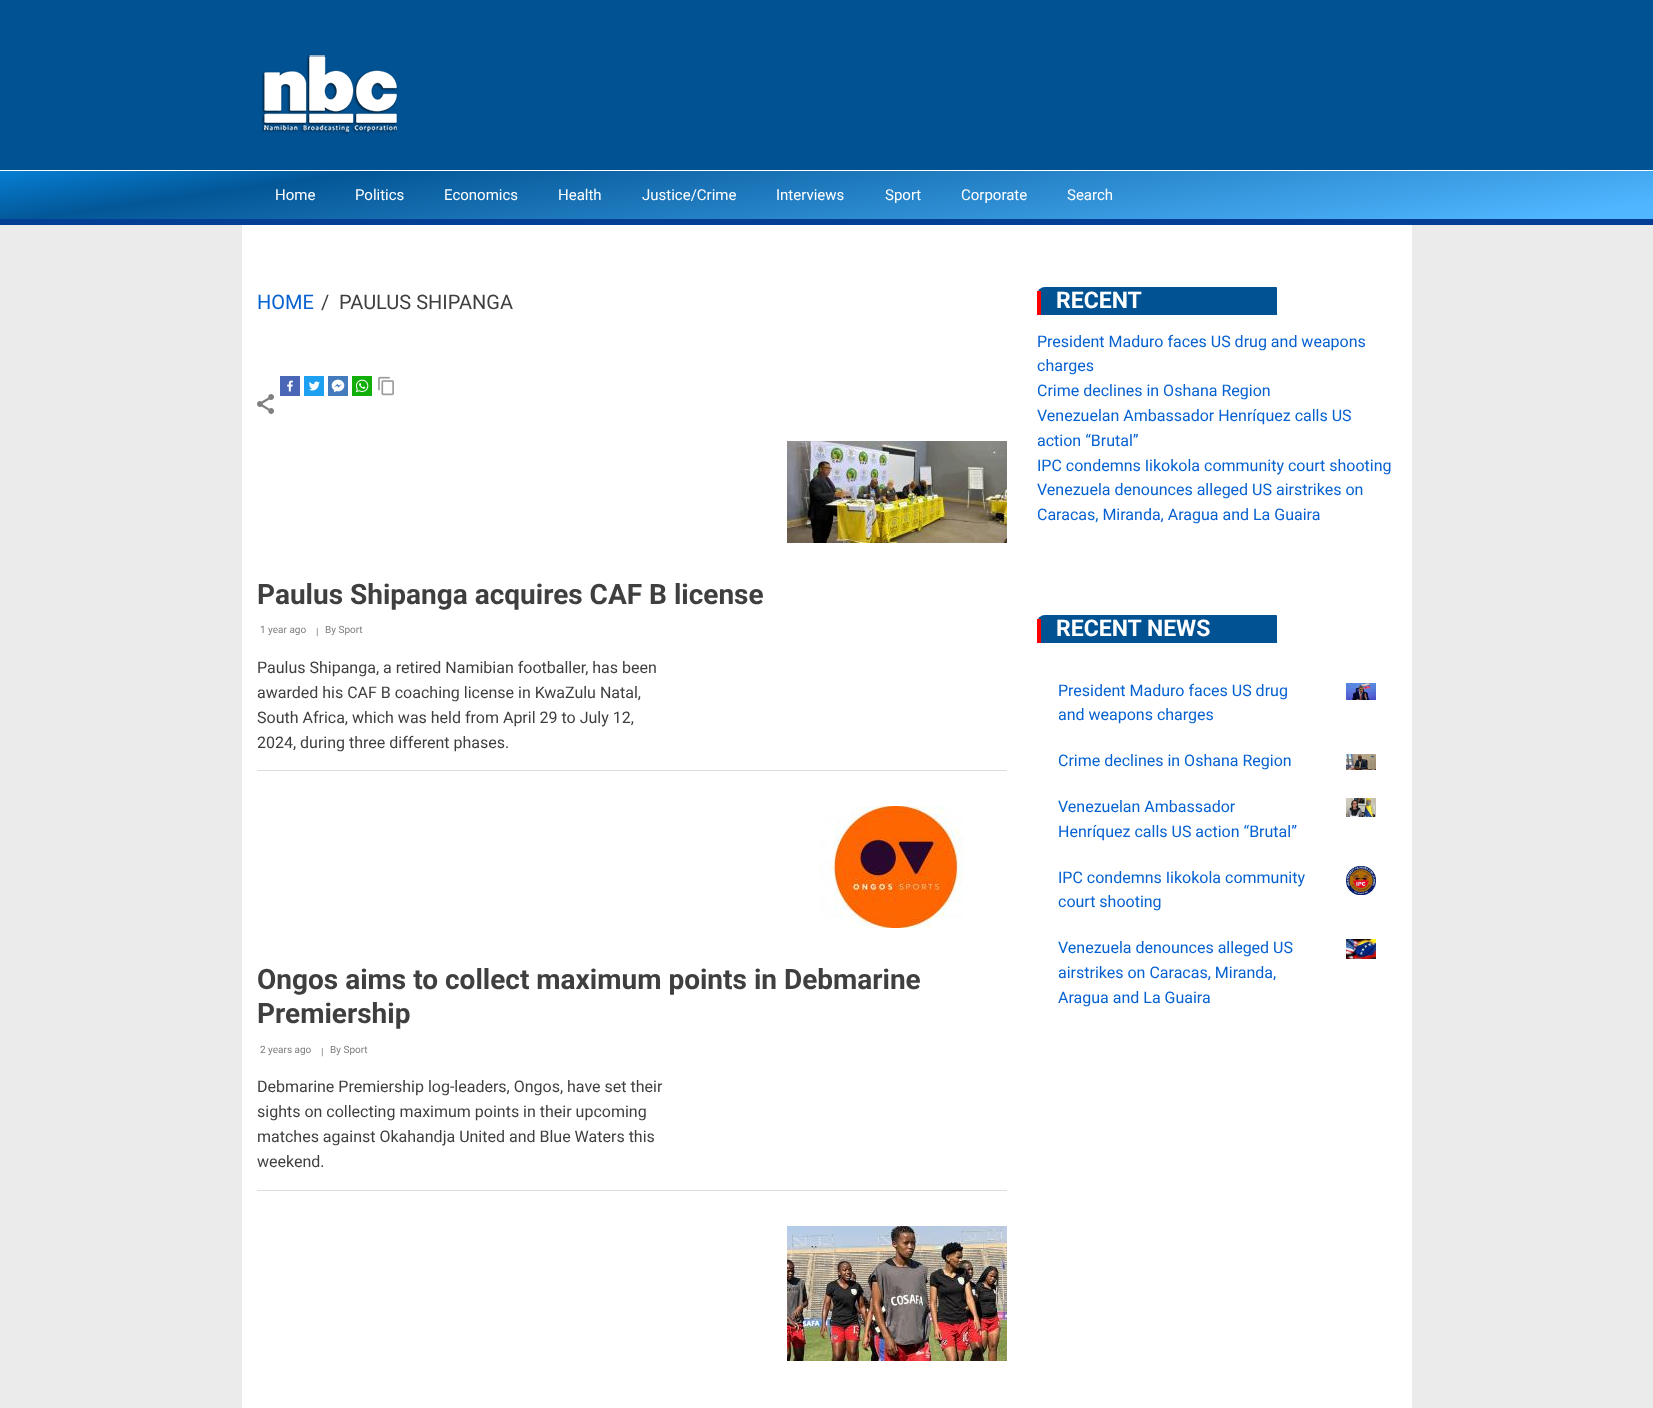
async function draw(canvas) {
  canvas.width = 1653;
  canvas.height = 1408;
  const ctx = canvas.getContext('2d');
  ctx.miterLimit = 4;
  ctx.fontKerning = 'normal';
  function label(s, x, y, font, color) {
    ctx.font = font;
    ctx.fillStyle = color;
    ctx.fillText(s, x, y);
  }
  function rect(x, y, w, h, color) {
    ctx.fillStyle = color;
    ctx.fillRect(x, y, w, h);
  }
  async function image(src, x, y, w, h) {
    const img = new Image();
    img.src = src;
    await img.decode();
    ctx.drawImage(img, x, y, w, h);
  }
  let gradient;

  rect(0, 0, 1653, 1408, '#ebebeb');
  rect(0, 0, 1653, 170, '#015293');
  rect(0, 170, 1653, 1, '#fff');
  await image('assets/img1.png', 261, 54, 137, 81);
  gradient = ctx.createLinearGradient(807, 58, 846, 332);
  gradient.addColorStop(0, '#067dd1');
  gradient.addColorStop(0.18, '#035797');
  gradient.addColorStop(0.95, '#4fb6ff');
  ctx.fillStyle = gradient;
  ctx.fillRect(0, 171, 1653, 48);
  rect(0, 219, 1653, 6, '#043e95');
  label('Home', 275, 200, '15px Roboto', '#fff');
  label('Politics', 355, 200, '15px Roboto', '#fff');
  label('Economics', 444, 200, '15px Roboto', '#fff');
  label('Health', 558, 200, '15px Roboto', '#fff');
  label('Justice/Crime', 642, 200, '15px Roboto', '#fff');
  label('Interviews', 776, 200, '15px Roboto', '#fff');
  label('Sport', 885, 200, '15px Roboto', '#fff');
  label('Corporate', 961, 200, '15px Roboto', '#fff');
  label('Search', 1067, 200, '15px Roboto', '#fff');
  rect(242, 225, 1170, 1183, '#fff');
  label('HOME', 257, 309, '20px Roboto', '#0661d1');
  label('/', 321, 309, '20px Roboto', '#3f3f3f');
  label('PAULUS SHIPANGA', 339, 309, '20px Roboto', '#3f3f3f');
  await image('assets/img2.png', 280, 376, 20, 20);
  await image('assets/img3.png', 304, 376, 20, 20);
  await image('assets/img4.png', 328, 376, 20, 20);
  await image('assets/img5.png', 352, 376, 20, 20);
  await image('assets/img6.png', 378, 376, 16, 20);
  await image('assets/img7.png', 257, 394, 17, 20);
  rect(257, 770, 750, 1, '#ddd');
  await image('assets/img8.png', 787, 441, 220, 102);
  label('Paulus Shipanga acquires CAF B license', 257, 604, 'bold 28px Roboto', '#3f3f3f');
  label('1 year ago', 260, 633, '10px Roboto', '#7d7d7d');
  label('|', 316, 635, '10px Roboto', '#7d7d7d');
  label('By Sport', 325, 633, '10px Roboto', '#7d7d7d');
  label('Paulus Shipanga, a retired Namibian footballer, has been', 257, 673, '16px Roboto', '#3f3f3f');
  label('awarded his CAF B coaching license in KwaZulu Natal,', 257, 698, '16px Roboto', '#3f3f3f');
  label('South Africa, which was held from April 29 to July 12,', 257, 723, '16px Roboto', '#3f3f3f');
  label('2024, during three different phases.', 257, 748, '16px Roboto', '#3f3f3f');
  rect(257, 1190, 750, 1, '#ddd');
  await image('assets/img9.png', 819, 806, 145, 122);
  label('Ongos aims to collect maximum points in Debmarine', 257, 989, 'bold 28px Roboto', '#3f3f3f');
  label('Premiership', 257, 1023, 'bold 28px Roboto', '#3f3f3f');
  label('2 years ago', 260, 1053, '10px Roboto', '#7d7d7d');
  label('|', 321, 1055, '10px Roboto', '#7d7d7d');
  label('By Sport', 330, 1053, '10px Roboto', '#7d7d7d');
  label('Debmarine Premiership log-leaders, Ongos, have set their', 257, 1092, '16px Roboto', '#3f3f3f');
  label('sights on collecting maximum points in their upcoming', 257, 1117, '16px Roboto', '#3f3f3f');
  label('matches against Okahandja United and Blue Waters this', 257, 1142, '16px Roboto', '#3f3f3f');
  label('weekend.', 257, 1167, '16px Roboto', '#3f3f3f');
  await image('assets/img10.png', 787, 1226, 220, 135);
  ctx.fillStyle = '#015293';
  ctx.beginPath();
  ctx.roundRect(1037, 287, 240, 28, [8, 1, 0, 0]);
  ctx.fill();
  rect(1037, 291, 4, 24, '#f00');
  label('RECENT', 1056, 308, 'bold 23px Roboto', '#fff');
  label('President Maduro faces US drug and weapons', 1037, 347, '16px Roboto', '#0661d1');
  label('charges', 1037, 371, '16px Roboto', '#0661d1');
  label('Crime declines in Oshana Region', 1037, 396, '16px Roboto', '#0661d1');
  label('Venezuelan Ambassador Henríquez calls US', 1037, 421, '16px Roboto', '#0661d1');
  label('action “Brutal”', 1037, 446, '16px Roboto', '#0661d1');
  label('IPC condemns Iikokola community court shooting', 1037, 471, '16px Roboto', '#0661d1');
  label('Venezuela denounces alleged US airstrikes on', 1037, 495, '16px Roboto', '#0661d1');
  label('Caracas, Miranda, Aragua and La Guaira', 1037, 520, '16px Roboto', '#0661d1');
  ctx.fillStyle = '#015293';
  ctx.beginPath();
  ctx.roundRect(1037, 615, 240, 28, [8, 1, 0, 0]);
  ctx.fill();
  rect(1037, 619, 4, 24, '#f00');
  label('RECENT NEWS', 1056, 636, 'bold 23px Roboto', '#fff');
  label('President Maduro faces US drug', 1058, 696, '16px Roboto', '#0661d1');
  label('and weapons charges', 1058, 720, '16px Roboto', '#0661d1');
  await image('assets/img11.png', 1346, 683, 30, 17);
  label('Crime declines in Oshana Region', 1058, 766, '16px Roboto', '#0661d1');
  await image('assets/img12.png', 1346, 754, 30, 16);
  label('Venezuelan Ambassador', 1058, 812, '16px Roboto', '#0661d1');
  label('Henríquez calls US action “Brutal”', 1058, 837, '16px Roboto', '#0661d1');
  await image('assets/img13.png', 1346, 798, 30, 19);
  label('IPC condemns Iikokola community', 1058, 883, '16px Roboto', '#0661d1');
  label('court shooting', 1058, 907, '16px Roboto', '#0661d1');
  await image('assets/img14.png', 1346, 866, 30, 29);
  label('Venezuela denounces alleged US', 1058, 953, '16px Roboto', '#0661d1');
  label('airstrikes on Caracas, Miranda,', 1058, 978, '16px Roboto', '#0661d1');
  label('Aragua and La Guaira', 1058, 1003, '16px Roboto', '#0661d1');
  await image('assets/img15.png', 1346, 939, 30, 20);
}

draw(document.querySelector('canvas'));
